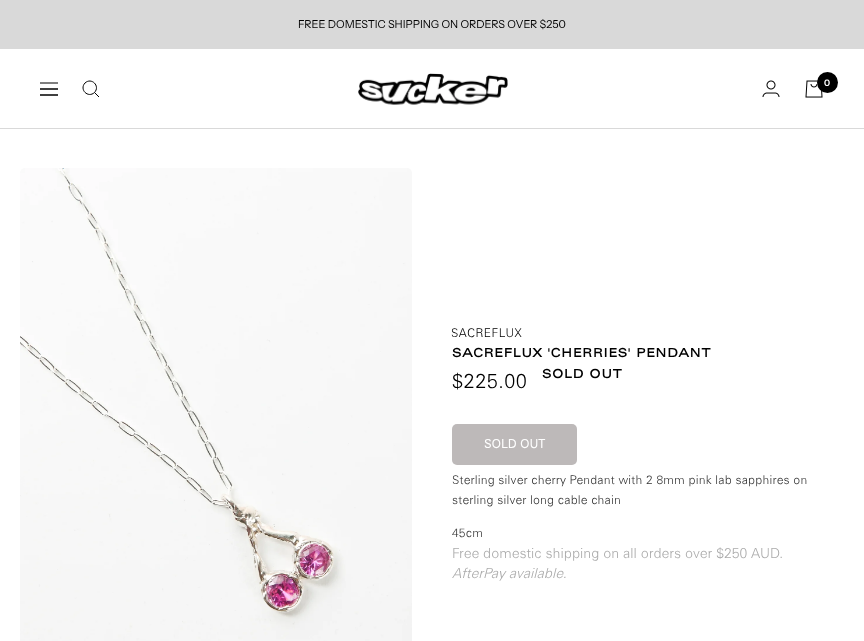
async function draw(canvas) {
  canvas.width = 864;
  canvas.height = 641;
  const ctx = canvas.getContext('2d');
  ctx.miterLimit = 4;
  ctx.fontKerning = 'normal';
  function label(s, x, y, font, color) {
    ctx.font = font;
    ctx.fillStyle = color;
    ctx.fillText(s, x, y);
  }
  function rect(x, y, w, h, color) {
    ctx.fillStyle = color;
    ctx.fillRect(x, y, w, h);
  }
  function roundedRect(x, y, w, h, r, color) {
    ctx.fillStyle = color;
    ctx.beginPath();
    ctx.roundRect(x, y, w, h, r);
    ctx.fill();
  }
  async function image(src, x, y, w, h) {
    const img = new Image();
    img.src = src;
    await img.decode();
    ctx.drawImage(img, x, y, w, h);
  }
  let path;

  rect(0, 0, 864, 641, '#fff');
  rect(0, 0, 864, 49, '#d9d9d9');
  label('FREE DOMESTIC SHIPPING ON ORDERS OVER $250', 298, 28, '11px Instrument Sans', '#000');
  rect(0, 128, 864, 1, '#d9d9d9');
  path = new Path2D('M40 83H58M40 95H58ZM40 89H58ZM94.5 92.5C100.5 86 91.5 77 85 83C79 89.5 88 98.5 94.5 92.5ZM94.5 92.5L99 97');
  ctx.strokeStyle = '#000';
  ctx.stroke(path);
  await image('assets/img1.png', 358, 73, 150, 32);
  await image('assets/img2.png', 762, 80, 18, 17);
  await image('assets/img3.png', 805, 80, 18, 18);
  ctx.fillStyle = '#000';
  ctx.beginPath();
  ctx.arc(827.5, 82.5, 10.5, 0, 2 * Math.PI);
  ctx.fill();
  label('0', 824, 86, '600 9px Instrument Sans', '#fff');
  await image('assets/img4.png', 20, 168, 392, 473);
  ctx.letterSpacing = '0.5px';
  label('SACREFLUX', 451, 337, '300 12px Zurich', '#000');
  ctx.letterSpacing = '1px';
  label('SACREFLUX \'CHERRIES\' PENDANT', 452, 357, 'bold 12px Zurich', '#000');
  ctx.letterSpacing = '0.5px';
  label('$225.00', 452, 388, '300 20px Zurich', '#000');
  ctx.letterSpacing = '1px';
  label('SOLD OUT', 542, 378, 'bold 12px Zurich', '#000');
  roundedRect(452, 424, 125, 41, 5, '#bdb9b9');
  ctx.letterSpacing = '0.2px';
  label('SOLD OUT', 484, 448, 'bold 12px "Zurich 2"', '#fff');
  label('Sterling silver cherry Pendant with 2 8mm pink lab sapphires on', 452, 484, '300 12px Zurich', '#333');
  label('sterling silver long cable chain', 452, 504, '300 12px Zurich', '#333');
  label('45cm', 452, 537, '300 12px Zurich', '#333');
  ctx.letterSpacing = '0px';
  label('Free domestic shipping on all orders over $250 AUD.', 452, 558, '300 14px Zurich', '#ababab');
  label('AfterPay available.', 452, 578, 'italic 300 14px Zurich', '#ababab');
}

draw(document.querySelector('canvas'));
